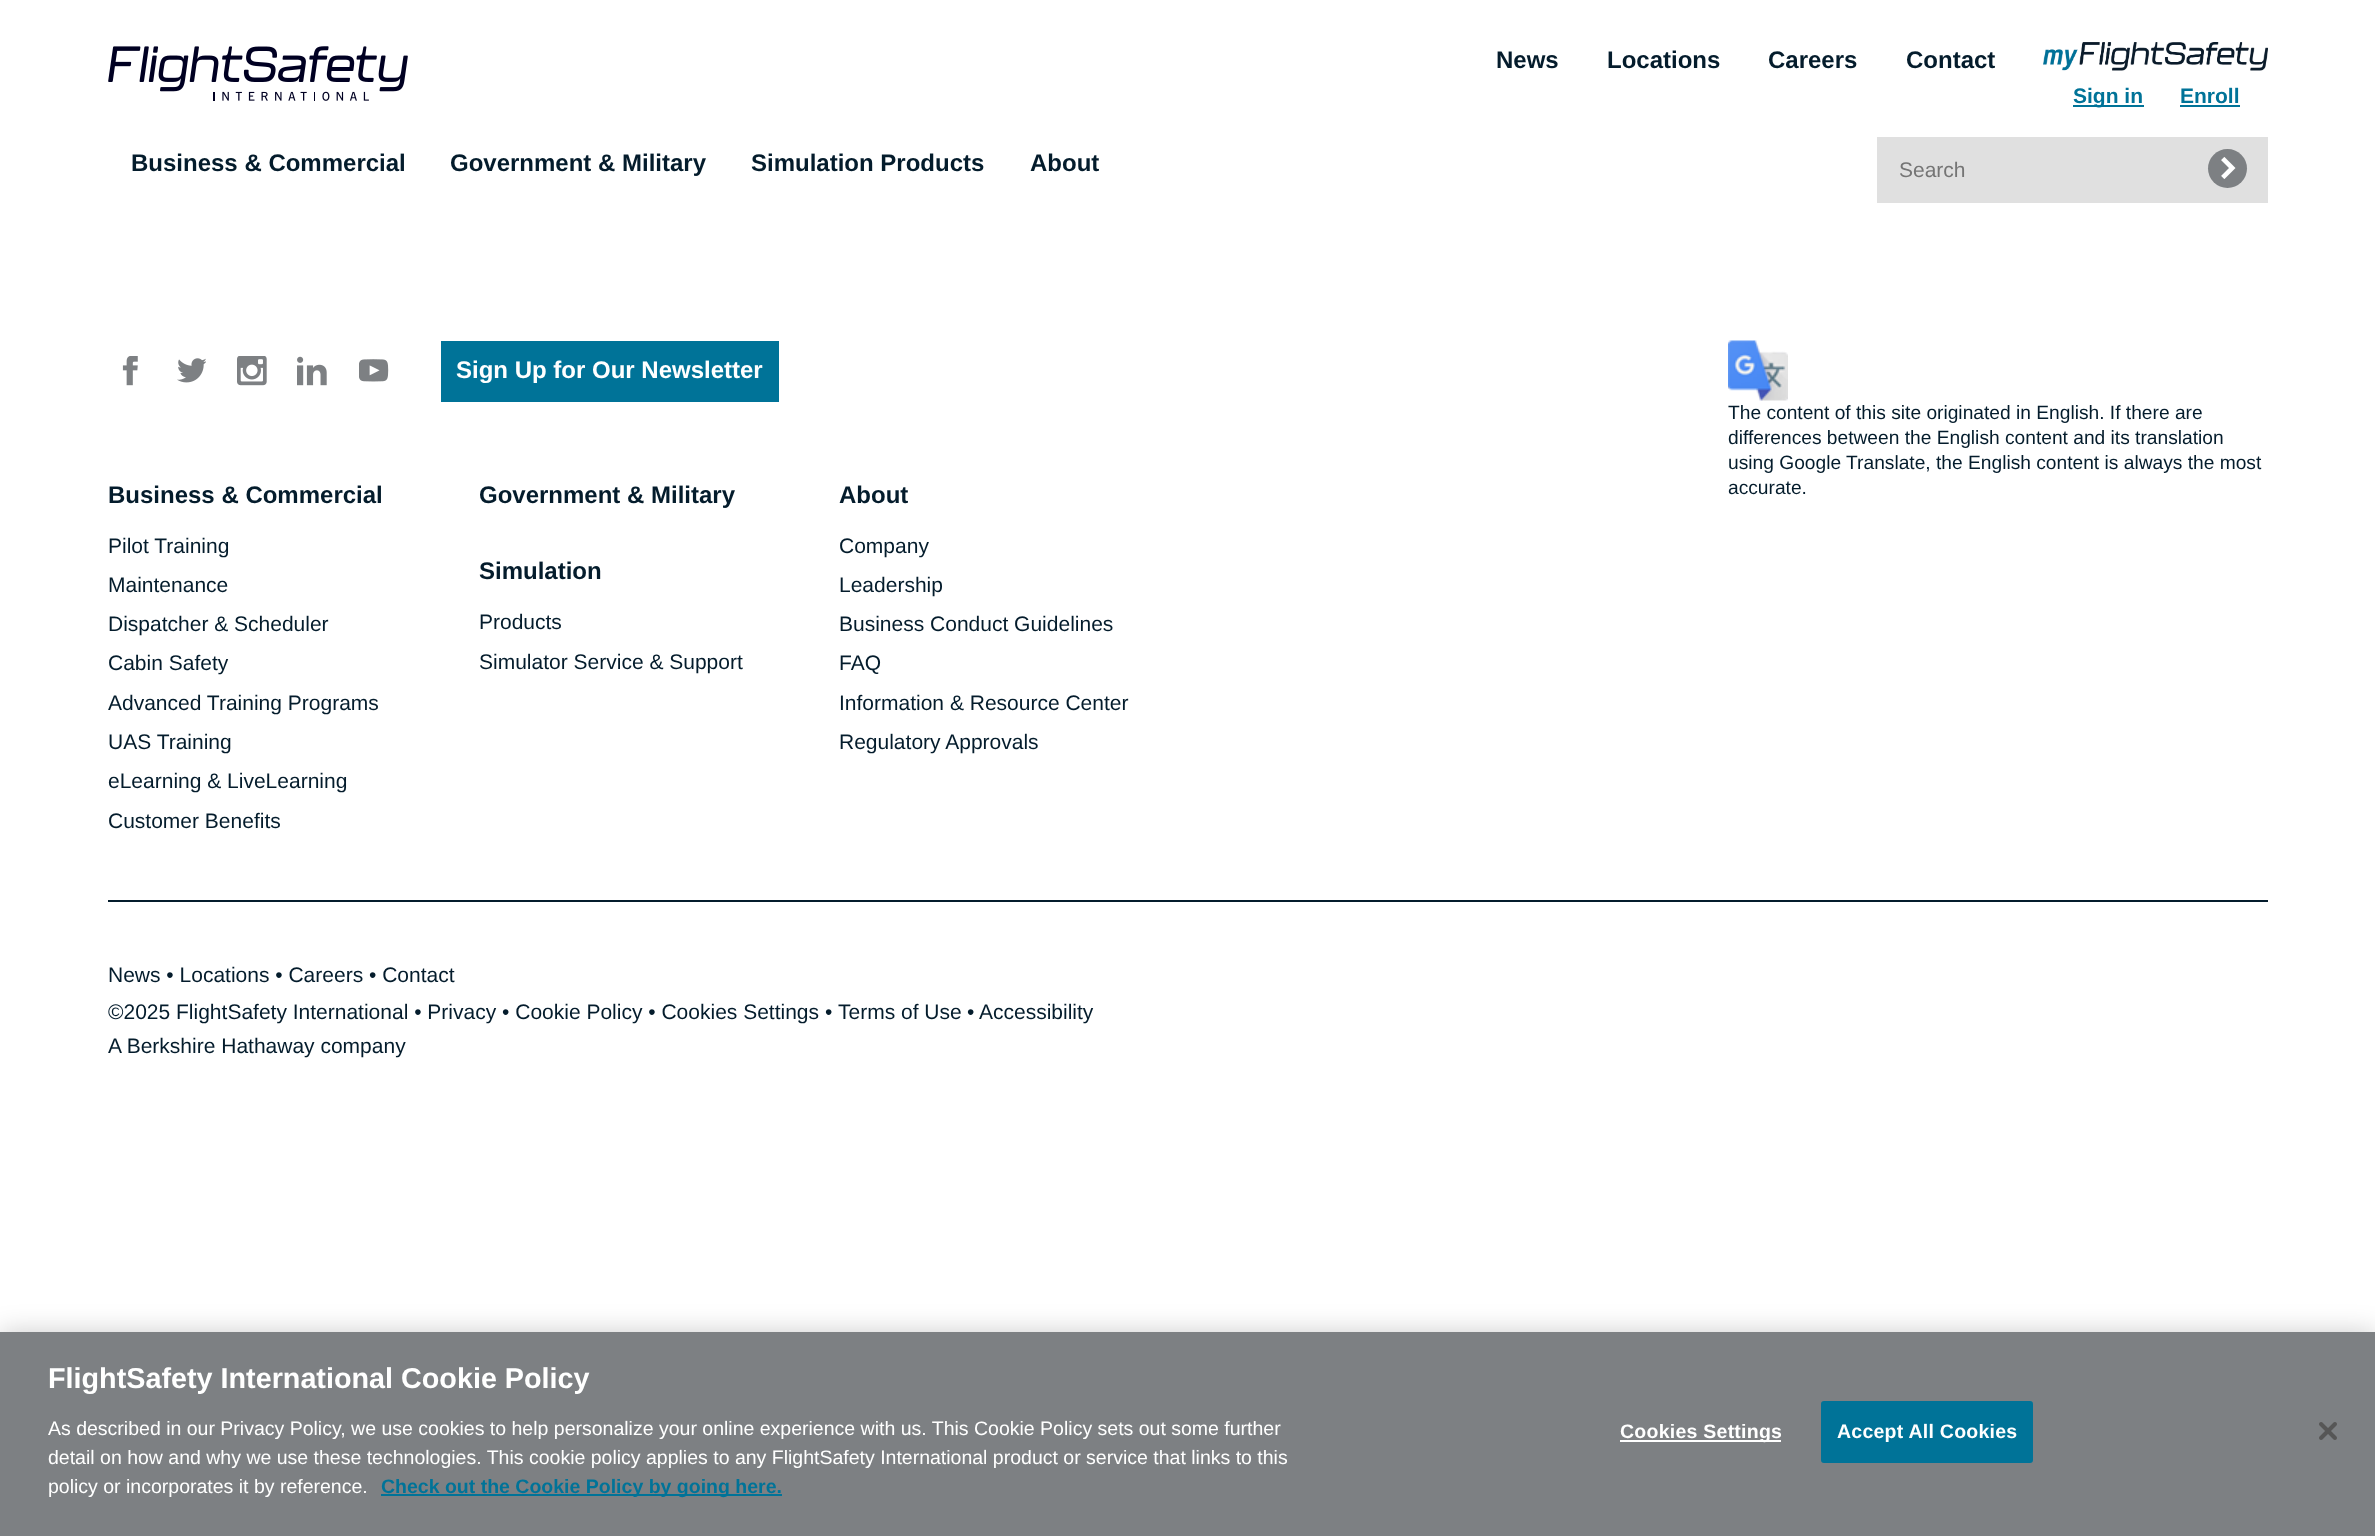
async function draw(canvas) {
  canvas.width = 2375;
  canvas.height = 1536;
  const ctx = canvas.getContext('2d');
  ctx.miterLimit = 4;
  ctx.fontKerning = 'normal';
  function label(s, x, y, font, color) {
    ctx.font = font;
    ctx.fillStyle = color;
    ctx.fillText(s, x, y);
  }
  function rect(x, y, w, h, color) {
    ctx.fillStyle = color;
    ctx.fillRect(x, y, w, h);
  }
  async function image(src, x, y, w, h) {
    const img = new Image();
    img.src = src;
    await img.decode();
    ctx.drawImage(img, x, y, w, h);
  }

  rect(0, 0, 2375, 1536, '#fff');
  await image('assets/img1.png', 108, 46, 300, 55);
  label('News', 1496, 68, 'bold 24px Liberation Sans', '#041c2c');
  label('Locations', 1607, 68, 'bold 24px Liberation Sans', '#041c2c');
  label('Careers', 1768, 68, 'bold 24px Liberation Sans', '#041c2c');
  label('Contact', 1906, 68, 'bold 24px Liberation Sans', '#041c2c');
  await image('assets/img2.png', 2043, 42, 225, 29);
  rect(2073, 105, 71, 2, '#007398');
  label('Sign in', 2073, 103, 'bold 21px Liberation Sans', '#007398');
  label('Enroll', 2180, 103, 'bold 21px Liberation Sans', '#007398');
  rect(2180, 105, 60, 2, '#007398');
  label('Business & Commercial', 131, 171, 'bold 24px Liberation Sans', '#041c2c');
  label('Government & Military', 450, 171, 'bold 24px Liberation Sans', '#041c2c');
  label('Simulation Products', 751, 171, 'bold 24px Liberation Sans', '#041c2c');
  label('About', 1030, 171, 'bold 24px Liberation Sans', '#041c2c');
  rect(1877, 137, 391, 66, '#e0e0e0');
  label('Search', 1899, 177, '21px Liberation Sans', '#757575');
  ctx.fillStyle = '#7d8083';
  ctx.beginPath();
  ctx.arc(2227.5, 168.5, 19.5, 0, 2 * Math.PI);
  ctx.fill();
  await image('assets/img3.png', 2221, 157, 15, 22);
  await image('assets/img4.png', 122, 356, 16, 30);
  await image('assets/img5.png', 177, 358, 29, 25);
  await image('assets/img6.png', 237, 356, 30, 30);
  await image('assets/img7.png', 297, 356, 30, 30);
  await image('assets/img8.png', 359, 359, 30, 23);
  rect(441, 341, 338, 61, '#007398');
  label('Sign Up for Our Newsletter', 456, 378, 'bold 24px Liberation Sans', '#fff');
  label('Business & Commercial', 108, 503, 'bold 24px Liberation Sans', '#041c2c');
  label('Pilot Training', 108, 553, '21px Liberation Sans', '#041c2c');
  label('Maintenance', 108, 592, '21px Liberation Sans', '#041c2c');
  label('Dispatcher & Scheduler', 108, 631, '21px Liberation Sans', '#041c2c');
  label('Cabin Safety', 108, 670, '21px Liberation Sans', '#041c2c');
  label('Advanced Training Programs', 108, 710, '21px Liberation Sans', '#041c2c');
  label('UAS Training', 108, 749, '21px Liberation Sans', '#041c2c');
  label('eLearning & LiveLearning', 108, 788, '21px Liberation Sans', '#041c2c');
  label('Customer Benefits', 108, 828, '21px Liberation Sans', '#041c2c');
  label('Government & Military', 479, 503, 'bold 24px Liberation Sans', '#041c2c');
  label('Simulation', 479, 579, 'bold 24px Liberation Sans', '#041c2c');
  label('Products', 479, 629, '21px Liberation Sans', '#041c2c');
  label('Simulator Service & Support', 479, 669, '21px Liberation Sans', '#041c2c');
  label('About', 839, 503, 'bold 24px Liberation Sans', '#041c2c');
  label('Company', 839, 553, '21px Liberation Sans', '#041c2c');
  label('Leadership', 839, 592, '21px Liberation Sans', '#041c2c');
  label('Business Conduct Guidelines', 839, 631, '21px Liberation Sans', '#041c2c');
  label('FAQ', 839, 670, '21px Liberation Sans', '#041c2c');
  label('Information & Resource Center', 839, 710, '21px Liberation Sans', '#041c2c');
  label('Regulatory Approvals', 839, 749, '21px Liberation Sans', '#041c2c');
  await image('assets/img9.png', 1728, 340, 60, 61);
  label('The content of this site originated in English. If there are', 1728, 419, '19.2px Liberation Sans', '#041c2c');
  label('differences between the English content and its translation', 1728, 444, '19.2px Liberation Sans', '#041c2c');
  label('using Google Translate, the English content is always the most', 1728, 469, '19.2px Liberation Sans', '#041c2c');
  label('accurate.', 1728, 494, '19.2px Liberation Sans', '#041c2c');
  rect(108, 900, 2160, 2, '#041c2c');
  label('News • Locations • Careers • Contact', 108, 982, '21px Liberation Sans', '#041c2c');
  label('©2025 FlightSafety International • Privacy • Cookie Policy • Cookies Settings', 108, 1019, '21px Liberation Sans', '#041c2c');
  label('•', 825, 1019, '21px Liberation Sans', '#041c2c');
  label('Terms of Use', 838, 1019, '21px Liberation Sans', '#041c2c');
  label('•', 967, 1019, '21px Liberation Sans', '#041c2c');
  label('Accessibility', 979, 1019, '21px Liberation Sans', '#041c2c');
  label('A Berkshire Hathaway company', 108, 1053, '21px Liberation Sans', '#041c2c');
  ctx.fillStyle = '#00000033';
  ctx.filter = 'blur(13.5px)';
  ctx.beginPath();
  ctx.rect(0, 1332, 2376, 204);
  ctx.fill();
  ctx.filter = 'none';
  rect(0, 1332, 2375, 204, '#7d8083');
  label('FlightSafety International Cookie Policy', 48, 1388, 'bold 28.75px Liberation Sans', '#fff');
  label('As described in our Privacy Policy, we use cookies to help personalize your online experience with us. This Cookie Policy sets out some further', 48, 1435, '19.5px Liberation Sans', '#fff');
  label('detail on how and why we use these technologies. This cookie policy applies to any FlightSafety International product or service that links to this', 48, 1464, '19.5px Liberation Sans', '#fff');
  label('policy or incorporates it by reference.', 48, 1493, '19.5px Liberation Sans', '#fff');
  rect(381, 1494, 401, 2, '#007398');
  label('Check out the Cookie Policy by going here.', 381, 1493, 'bold 19.5px Liberation Sans', '#007398');
  rect(1620, 1440, 161, 2, '#fff');
  ctx.letterSpacing = '0.25px';
  label('Cookies Settings', 1620, 1438, 'bold 19.5px Liberation Sans', '#fff');
  ctx.fillStyle = '#007398';
  ctx.beginPath();
  ctx.roundRect(1822, 1402, 210, 60, 2);
  ctx.fill();
  ctx.strokeStyle = '#007398';
  ctx.lineWidth = 2;
  ctx.stroke();
  label('Accept All Cookies', 1837, 1438, 'bold 19.5px Liberation Sans', '#fff');
  await image('assets/img10.png', 2319, 1422, 18, 18);
}

draw(document.querySelector('canvas'));
